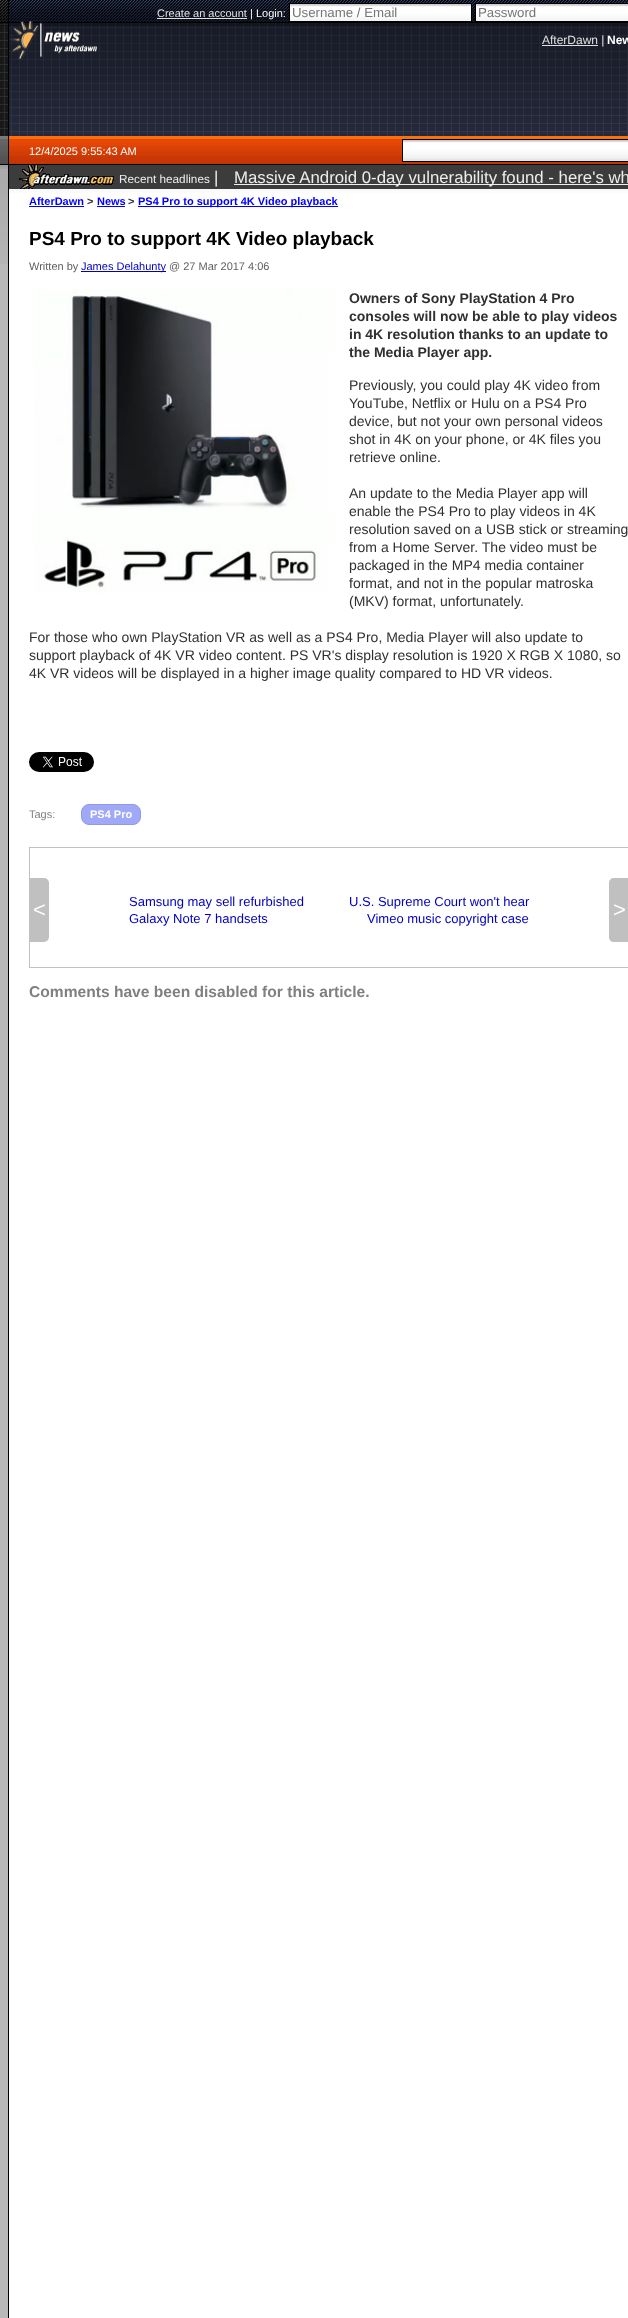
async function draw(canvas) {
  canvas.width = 628;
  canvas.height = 2318;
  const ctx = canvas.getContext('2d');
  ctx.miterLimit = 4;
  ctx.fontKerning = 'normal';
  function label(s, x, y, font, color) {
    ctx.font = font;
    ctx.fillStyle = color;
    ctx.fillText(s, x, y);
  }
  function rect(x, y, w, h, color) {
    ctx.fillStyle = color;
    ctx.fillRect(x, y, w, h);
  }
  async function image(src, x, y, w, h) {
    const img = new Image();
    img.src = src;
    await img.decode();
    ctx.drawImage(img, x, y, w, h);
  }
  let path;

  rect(0, 0, 628, 2318, '#fff');
  await image('assets/img1.png', 0, 0, 8, 23);
  await image('assets/img2.png', 9, 0, 619, 23);
  rect(8, 0, 1, 136, '#000');
  label('Create an account', 157, 17, '11px Liberation Sans', '#e0e0e0');
  rect(157, 18, 90, 1, '#e0e0e0');
  label('| Login:', 250, 17, '11px Liberation Sans', '#fff');
  await image('assets/img3.png', 290, 4, 181, 17);
  ctx.strokeStyle = '#000';
  ctx.strokeRect(289.5, 3.5, 182, 18);
  label('Username / Email', 292, 17, '13.25px Liberation Sans', '#757575');
  await image('assets/img4.png', 476, 4, 152, 17);
  ctx.strokeRect(475.5, 3.5, 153, 18);
  label('Password', 478, 17, '13.25px Liberation Sans', '#757575');
  rect(0, 23, 8, 113, '#181818');
  await image('assets/img5.png', 0, 23, 8, 113);
  rect(9, 23, 619, 113, '#31374f');
  await image('assets/img6.png', 9, 23, 619, 113);
  await image('assets/img8.png', 9, 23, 619, 113);
  rect(0, 23, 628, 3, '#00000033');
  await image('assets/img7.png', 10, 21, 88, 39);
  rect(542, 45, 56, 1, '#e0e0e0');
  label('AfterDawn |', 542, 44, '12px Liberation Sans', '#e0e0e0');
  label('New', 607, 44, 'bold 12px Liberation Sans', '#fff');
  await image('assets/img9.png', 0, 136, 8, 29);
  await image('assets/img10.png', 9, 136, 619, 28);
  rect(8, 164, 620, 1, '#000');
  rect(8, 136, 1, 2182, '#000');
  label('12/4/2025 9:55:43 AM', 29, 155, '11px Liberation Sans', '#fff');
  rect(403, 159, 225, 2, '#e6e6e6');
  await image('assets/img11.png', 403, 140, 225, 19);
  ctx.strokeRect(402.5, 139.5, 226, 22);
  rect(0, 264, 8, 2054, '#b9b9b9');
  await image('assets/img12.png', 0, 165, 8, 99);
  await image('assets/img13.png', 9, 189, 619, 4);
  rect(9, 165, 619, 24, '#3c3c3c');
  await image('assets/img14.png', 19, 165, 95, 24);
  label('Recent headlines', 119, 183, '11.75px Liberation Sans', '#eee');
  label('|', 214, 183, '16.8px Liberation Sans', '#eee');
  rect(234, 184, 394, 1, '#eee');
  label('Massive Android 0-day vulnerability found - here\'s wh', 234, 183, '16.8px Liberation Sans', '#eee');
  label('AfterDawn', 29, 205, 'bold 11px Liberation Sans', '#00f');
  rect(29, 206, 55, 1, '#00f');
  label('>', 87, 205, 'bold 11px Liberation Sans', '#30303d');
  label('News', 97, 205, 'bold 11px Liberation Sans', '#00f');
  rect(97, 206, 28, 1, '#00f');
  label('>', 128, 205, 'bold 11px Liberation Sans', '#30303d');
  rect(138, 206, 200, 1, '#00f');
  label('PS4 Pro to support 4K Video playback', 138, 205, 'bold 11px Liberation Sans', '#00f');
  label('PS4 Pro to support 4K Video playback', 29, 245, 'bold 19px Liberation Sans', '#000');
  label('Written by', 29, 270, '11px Liberation Sans', '#606060');
  rect(81, 271, 85, 1, '#0000bf');
  label('James Delahunty', 81, 270, '11px Liberation Sans', '#0000bf');
  label('@ 27 Mar 2017 4:06', 169, 270, '11px Liberation Sans', '#606060');
  await image('assets/img15.png', 34, 289, 295, 304);
  label('Owners of Sony PlayStation 4 Pro', 349, 303, 'bold 14px Liberation Sans', '#303030');
  label('consoles will now be able to play videos', 349, 321, 'bold 14px Liberation Sans', '#303030');
  label('in 4K resolution thanks to an update to', 349, 339, 'bold 14px Liberation Sans', '#303030');
  label('the Media Player app.', 349, 357, 'bold 14px Liberation Sans', '#303030');
  label('Previously, you could play 4K video from', 349, 390, '14px Liberation Sans', '#303030');
  label('YouTube, Netflix or Hulu on a PS4 Pro', 349, 408, '14px Liberation Sans', '#303030');
  label('device, but not your own personal videos', 349, 426, '14px Liberation Sans', '#303030');
  label('shot in 4K on your phone, or 4K files you', 349, 444, '14px Liberation Sans', '#303030');
  label('retrieve online.', 349, 462, '14px Liberation Sans', '#303030');
  label('An update to the Media Player app will', 349, 498, '14px Liberation Sans', '#303030');
  label('enable the PS4 Pro to play videos in 4K', 349, 516, '14px Liberation Sans', '#303030');
  label('resolution saved on a USB stick or streaming', 349, 534, '14px Liberation Sans', '#303030');
  label('from a Home Server. The video must be', 349, 552, '14px Liberation Sans', '#303030');
  label('packaged in the MP4 media container', 349, 570, '14px Liberation Sans', '#303030');
  label('format, and not in the popular matroska', 349, 588, '14px Liberation Sans', '#303030');
  label('(MKV) format, unfortunately.', 349, 606, '14px Liberation Sans', '#303030');
  label('For those who own PlayStation VR as well as a PS4 Pro, Media Player will also update to', 29, 642, '14px Liberation Sans', '#303030');
  label('support playback of 4K VR video content. PS VR\'s display resolution is 1920 X RGB X 1080, so', 29, 660, '14px Liberation Sans', '#303030');
  label('4K VR videos will be displayed in a higher image quality compared to HD VR videos.', 29, 678, '14px Liberation Sans', '#303030');
  await image('assets/img16.png', 29, 752, 65, 20);
  label('Tags:', 29, 818, '11px Liberation Sans', '#808080');
  ctx.fillStyle = '#a0a8f8';
  ctx.beginPath();
  ctx.roundRect(81.5, 804.5, 59, 20, 7.5);
  ctx.fill();
  ctx.strokeStyle = '#9199e9';
  ctx.stroke();
  label('PS4 Pro', 90, 818, 'bold 11px Liberation Sans', '#fff');
  ctx.strokeStyle = '#c0c0c0';
  ctx.strokeRect(29.5, 847.5, 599, 120);
  ctx.fillStyle = '#c0c0c0';
  ctx.beginPath();
  ctx.roundRect(29, 878, 20, 64, [0, 5, 5, 0]);
  ctx.fill();
  label('<', 33, 917, '22px Liberation Sans', '#fff');
  label('Samsung may sell refurbished', 129, 906, '13px Liberation Sans', '#0000bf');
  label('Galaxy Note 7 handsets', 129, 923, '13px Liberation Sans', '#0000bf');
  label('U.S. Supreme Court won\'t hear', 349, 906, '13px Liberation Sans', '#0000bf');
  ctx.fillStyle = '#c0c0c0';
  path = new Path2D('M614 878H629V942H614C611 942 609 940 609 937V883C609 880 611 878 614 878Z');
  ctx.fill(path);
  label('>', 613, 917, '22px Liberation Sans', '#fff');
  label('Vimeo music copyright case', 367, 923, '13px Liberation Sans', '#0000bf');
  label('Comments have been disabled for this article.', 29, 997, 'bold 15.6px Liberation Sans', '#808080');
}

draw(document.querySelector('canvas'));
